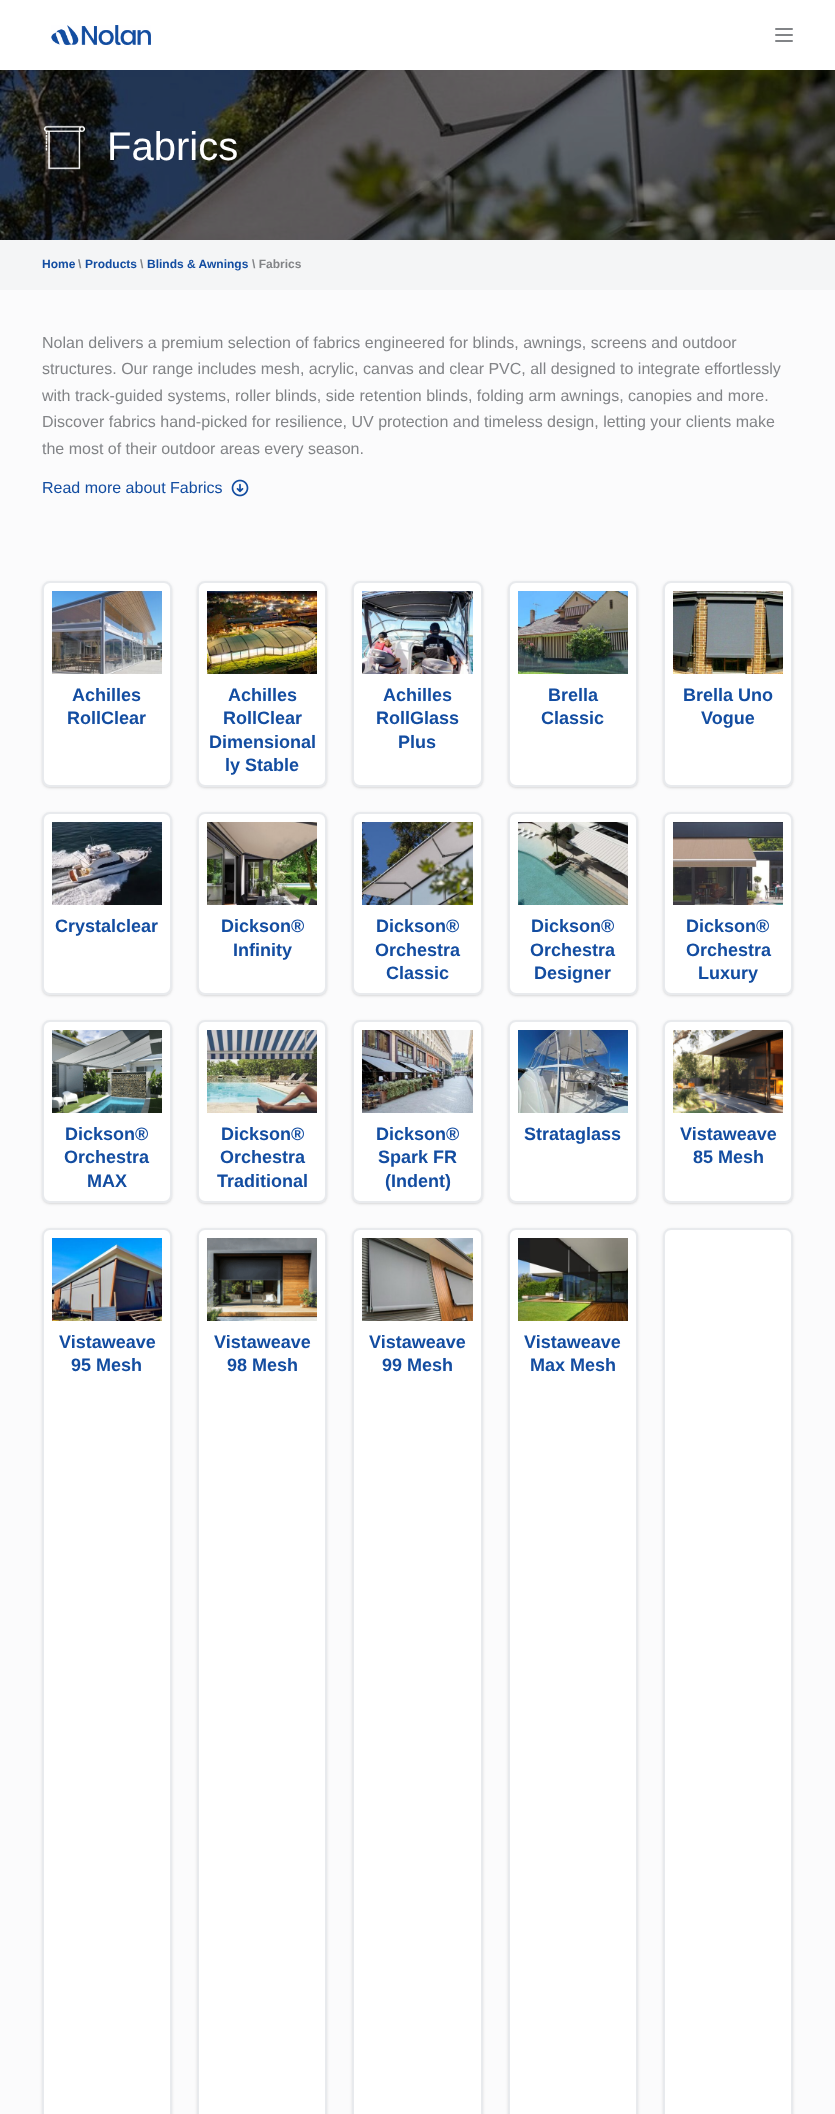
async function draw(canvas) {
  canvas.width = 835;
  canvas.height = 2114;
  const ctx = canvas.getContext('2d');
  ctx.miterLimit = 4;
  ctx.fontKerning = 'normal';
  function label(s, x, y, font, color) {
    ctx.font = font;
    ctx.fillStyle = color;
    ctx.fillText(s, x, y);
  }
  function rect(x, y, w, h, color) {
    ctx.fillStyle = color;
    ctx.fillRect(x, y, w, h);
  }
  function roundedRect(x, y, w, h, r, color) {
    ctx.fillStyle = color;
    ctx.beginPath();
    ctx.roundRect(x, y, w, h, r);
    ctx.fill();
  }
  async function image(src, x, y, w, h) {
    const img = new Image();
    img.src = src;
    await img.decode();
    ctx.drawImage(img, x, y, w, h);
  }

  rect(0, 0, 835, 2114, '#fbfbfc');
  rect(0, 0, 835, 70, '#fff');
  await image('assets/img1.png', 51, 25, 100, 20);
  roundedRect(775, 28, 18, 2, 1, '#828487');
  roundedRect(775, 34, 18, 2, 1, '#828487');
  roundedRect(775, 40, 18, 2, 1, '#828487');
  await image('assets/img2.png', 0, 70, 835, 170);
  await image('assets/img3.png', 43, 125, 43, 45);
  label('Fabrics', 107, 160, '40px Liberation Sans', '#fff');
  rect(0, 240, 835, 50, '#f4f5f6');
  label('Home', 42, 268, 'bold 12px Liberation Sans', '#134da1');
  label('\\', 78, 268, 'bold 12px Liberation Sans', '#828487');
  label('Products', 85, 268, 'bold 12px Liberation Sans', '#134da1');
  label('\\', 140, 268, 'bold 12px Liberation Sans', '#828487');
  label('Blinds & Awnings', 147, 268, 'bold 12px Liberation Sans', '#134da1');
  label('\\ Fabrics', 252, 268, 'bold 12px Liberation Sans', '#828487');
  label('Nolan delivers a premium selection of fabrics engineered for blinds, awnings, screens and outdoor', 42, 348, '16px Liberation Sans', '#828487');
  label('structures. Our range includes mesh, acrylic, canvas and clear PVC, all designed to integrate effortlessly', 42, 374, '16px Liberation Sans', '#828487');
  label('with track-guided systems, roller blinds, side retention blinds, folding arm awnings, canopies and more.', 42, 401, '16px Liberation Sans', '#828487');
  label('Discover fabrics hand-picked for resilience, UV protection and timeless design, letting your clients make', 42, 427, '16px Liberation Sans', '#828487');
  label('the most of their outdoor areas every season.', 42, 454, '16px Liberation Sans', '#828487');
  label('Read more about Fabrics', 42, 493, '16px Liberation Sans', '#134da1');
  await image('assets/img4.png', 231, 479, 18, 18);
  ctx.fillStyle = '#0000001a';
  ctx.filter = 'blur(1px)';
  ctx.beginPath();
  ctx.roundRect(43, 583, 128, 204, 7);
  ctx.fill();
  ctx.filter = 'none';
  ctx.filter = 'blur(1.5px)';
  ctx.beginPath();
  ctx.roundRect(42, 582, 130, 206, 8);
  ctx.fill();
  ctx.filter = 'none';
  roundedRect(42, 581, 130, 206, 8, '#fff');
  ctx.beginPath();
  ctx.roundRect(43, 582, 128, 204, 7);
  ctx.strokeStyle = '#d1d5db80';
  ctx.lineWidth = 2;
  ctx.stroke();
  await image('assets/img5.png', 52, 591, 110, 83);
  label('Achilles', 72, 701, 'bold 18px Liberation Sans', '#134da1');
  label('RollClear', 67, 724, 'bold 18px Liberation Sans', '#134da1');
  ctx.fillStyle = '#0000001a';
  ctx.filter = 'blur(1px)';
  ctx.beginPath();
  ctx.roundRect(198, 583, 128, 204, 7);
  ctx.fill();
  ctx.filter = 'none';
  ctx.filter = 'blur(1.5px)';
  ctx.beginPath();
  ctx.roundRect(197, 582, 130, 206, 8);
  ctx.fill();
  ctx.filter = 'none';
  roundedRect(197, 581, 130, 206, 8, '#fff');
  ctx.beginPath();
  ctx.roundRect(198, 582, 128, 204, 7);
  ctx.stroke();
  await image('assets/img6.png', 207, 591, 110, 83);
  label('Achilles', 228, 701, 'bold 18px Liberation Sans', '#134da1');
  label('RollClear', 223, 724, 'bold 18px Liberation Sans', '#134da1');
  label('Dimensional', 209, 748, 'bold 18px Liberation Sans', '#134da1');
  label('ly Stable', 225, 771, 'bold 18px Liberation Sans', '#134da1');
  ctx.fillStyle = '#0000001a';
  ctx.filter = 'blur(1px)';
  ctx.beginPath();
  ctx.roundRect(353, 583, 129, 204, 7);
  ctx.fill();
  ctx.filter = 'none';
  ctx.filter = 'blur(1.5px)';
  ctx.beginPath();
  ctx.roundRect(352, 582, 131, 206, 8);
  ctx.fill();
  ctx.filter = 'none';
  roundedRect(352, 581, 131, 206, 8, '#fff');
  ctx.beginPath();
  ctx.roundRect(353, 582, 129, 204, 7);
  ctx.stroke();
  await image('assets/img7.png', 362, 591, 111, 83);
  label('Achilles', 383, 701, 'bold 18px Liberation Sans', '#134da1');
  label('RollGlass', 376, 724, 'bold 18px Liberation Sans', '#134da1');
  label('Plus', 398, 748, 'bold 18px Liberation Sans', '#134da1');
  ctx.fillStyle = '#0000001a';
  ctx.filter = 'blur(1px)';
  ctx.beginPath();
  ctx.roundRect(509, 583, 128, 204, 7);
  ctx.fill();
  ctx.filter = 'none';
  ctx.filter = 'blur(1.5px)';
  ctx.beginPath();
  ctx.roundRect(508, 582, 130, 206, 8);
  ctx.fill();
  ctx.filter = 'none';
  roundedRect(508, 581, 130, 206, 8, '#fff');
  ctx.beginPath();
  ctx.roundRect(509, 582, 128, 204, 7);
  ctx.stroke();
  await image('assets/img8.png', 518, 591, 110, 83);
  label('Brella', 548, 701, 'bold 18px Liberation Sans', '#134da1');
  label('Classic', 541, 724, 'bold 18px Liberation Sans', '#134da1');
  ctx.fillStyle = '#0000001a';
  ctx.filter = 'blur(1px)';
  ctx.beginPath();
  ctx.roundRect(664, 583, 128, 204, 7);
  ctx.fill();
  ctx.filter = 'none';
  ctx.filter = 'blur(1.5px)';
  ctx.beginPath();
  ctx.roundRect(663, 582, 130, 206, 8);
  ctx.fill();
  ctx.filter = 'none';
  roundedRect(663, 581, 130, 206, 8, '#fff');
  ctx.beginPath();
  ctx.roundRect(664, 582, 128, 204, 7);
  ctx.stroke();
  await image('assets/img9.png', 673, 591, 110, 83);
  label('Brella Uno', 683, 701, 'bold 18px Liberation Sans', '#134da1');
  label('Vogue', 701, 724, 'bold 18px Liberation Sans', '#134da1');
  ctx.fillStyle = '#0000001a';
  ctx.filter = 'blur(1px)';
  ctx.beginPath();
  ctx.roundRect(43, 814, 128, 181, 7);
  ctx.fill();
  ctx.filter = 'none';
  ctx.filter = 'blur(1.5px)';
  ctx.beginPath();
  ctx.roundRect(42, 813, 130, 183, 8);
  ctx.fill();
  ctx.filter = 'none';
  roundedRect(42, 812, 130, 183, 8, '#fff');
  ctx.beginPath();
  ctx.roundRect(43, 813, 128, 181, 7);
  ctx.stroke();
  await image('assets/img10.png', 52, 822, 110, 83);
  label('Crystalclear', 55, 932, 'bold 18px Liberation Sans', '#134da1');
  ctx.fillStyle = '#0000001a';
  ctx.filter = 'blur(1px)';
  ctx.beginPath();
  ctx.roundRect(198, 814, 128, 181, 7);
  ctx.fill();
  ctx.filter = 'none';
  ctx.filter = 'blur(1.5px)';
  ctx.beginPath();
  ctx.roundRect(197, 813, 130, 183, 8);
  ctx.fill();
  ctx.filter = 'none';
  roundedRect(197, 812, 130, 183, 8, '#fff');
  ctx.beginPath();
  ctx.roundRect(198, 813, 128, 181, 7);
  ctx.stroke();
  await image('assets/img11.png', 207, 822, 110, 83);
  label('Dickson®', 221, 932, 'bold 18px Liberation Sans', '#134da1');
  label('Infinity', 233, 956, 'bold 18px Liberation Sans', '#134da1');
  ctx.fillStyle = '#0000001a';
  ctx.filter = 'blur(1px)';
  ctx.beginPath();
  ctx.roundRect(353, 814, 129, 181, 7);
  ctx.fill();
  ctx.filter = 'none';
  ctx.filter = 'blur(1.5px)';
  ctx.beginPath();
  ctx.roundRect(352, 813, 131, 183, 8);
  ctx.fill();
  ctx.filter = 'none';
  roundedRect(352, 812, 131, 183, 8, '#fff');
  ctx.beginPath();
  ctx.roundRect(353, 813, 129, 181, 7);
  ctx.stroke();
  await image('assets/img12.png', 362, 822, 111, 83);
  label('Dickson®', 376, 932, 'bold 18px Liberation Sans', '#134da1');
  label('Orchestra', 375, 956, 'bold 18px Liberation Sans', '#134da1');
  label('Classic', 386, 979, 'bold 18px Liberation Sans', '#134da1');
  ctx.fillStyle = '#0000001a';
  ctx.filter = 'blur(1px)';
  ctx.beginPath();
  ctx.roundRect(509, 814, 128, 181, 7);
  ctx.fill();
  ctx.filter = 'none';
  ctx.filter = 'blur(1.5px)';
  ctx.beginPath();
  ctx.roundRect(508, 813, 130, 183, 8);
  ctx.fill();
  ctx.filter = 'none';
  roundedRect(508, 812, 130, 183, 8, '#fff');
  ctx.beginPath();
  ctx.roundRect(509, 813, 128, 181, 7);
  ctx.stroke();
  await image('assets/img13.png', 518, 822, 110, 83);
  label('Dickson®', 531, 932, 'bold 18px Liberation Sans', '#134da1');
  label('Orchestra', 530, 956, 'bold 18px Liberation Sans', '#134da1');
  label('Designer', 534, 979, 'bold 18px Liberation Sans', '#134da1');
  ctx.fillStyle = '#0000001a';
  ctx.filter = 'blur(1px)';
  ctx.beginPath();
  ctx.roundRect(664, 814, 128, 181, 7);
  ctx.fill();
  ctx.filter = 'none';
  ctx.filter = 'blur(1.5px)';
  ctx.beginPath();
  ctx.roundRect(663, 813, 130, 183, 8);
  ctx.fill();
  ctx.filter = 'none';
  roundedRect(663, 812, 130, 183, 8, '#fff');
  ctx.beginPath();
  ctx.roundRect(664, 813, 128, 181, 7);
  ctx.stroke();
  await image('assets/img14.png', 673, 822, 110, 83);
  label('Dickson®', 686, 932, 'bold 18px Liberation Sans', '#134da1');
  label('Orchestra', 686, 956, 'bold 18px Liberation Sans', '#134da1');
  label('Luxury', 698, 979, 'bold 18px Liberation Sans', '#134da1');
  ctx.fillStyle = '#0000001a';
  ctx.filter = 'blur(1px)';
  ctx.beginPath();
  ctx.roundRect(43, 1022, 128, 181, 7);
  ctx.fill();
  ctx.filter = 'none';
  ctx.filter = 'blur(1.5px)';
  ctx.beginPath();
  ctx.roundRect(42, 1021, 130, 183, 8);
  ctx.fill();
  ctx.filter = 'none';
  roundedRect(42, 1020, 130, 183, 8, '#fff');
  ctx.beginPath();
  ctx.roundRect(43, 1021, 128, 181, 7);
  ctx.stroke();
  await image('assets/img15.png', 52, 1030, 110, 83);
  label('Dickson®', 65, 1140, 'bold 18px Liberation Sans', '#134da1');
  label('Orchestra', 64, 1163, 'bold 18px Liberation Sans', '#134da1');
  label('MAX', 87, 1187, 'bold 18px Liberation Sans', '#134da1');
  ctx.fillStyle = '#0000001a';
  ctx.filter = 'blur(1px)';
  ctx.beginPath();
  ctx.roundRect(198, 1022, 128, 181, 7);
  ctx.fill();
  ctx.filter = 'none';
  ctx.filter = 'blur(1.5px)';
  ctx.beginPath();
  ctx.roundRect(197, 1021, 130, 183, 8);
  ctx.fill();
  ctx.filter = 'none';
  roundedRect(197, 1020, 130, 183, 8, '#fff');
  ctx.beginPath();
  ctx.roundRect(198, 1021, 128, 181, 7);
  ctx.stroke();
  await image('assets/img16.png', 207, 1030, 110, 83);
  label('Dickson®', 221, 1140, 'bold 18px Liberation Sans', '#134da1');
  label('Orchestra', 220, 1163, 'bold 18px Liberation Sans', '#134da1');
  label('Traditional', 217, 1187, 'bold 18px Liberation Sans', '#134da1');
  ctx.fillStyle = '#0000001a';
  ctx.filter = 'blur(1px)';
  ctx.beginPath();
  ctx.roundRect(353, 1022, 129, 181, 7);
  ctx.fill();
  ctx.filter = 'none';
  ctx.filter = 'blur(1.5px)';
  ctx.beginPath();
  ctx.roundRect(352, 1021, 131, 183, 8);
  ctx.fill();
  ctx.filter = 'none';
  roundedRect(352, 1020, 131, 183, 8, '#fff');
  ctx.beginPath();
  ctx.roundRect(353, 1021, 129, 181, 7);
  ctx.stroke();
  await image('assets/img17.png', 362, 1030, 111, 83);
  label('Dickson®', 376, 1140, 'bold 18px Liberation Sans', '#134da1');
  label('Spark FR', 378, 1163, 'bold 18px Liberation Sans', '#134da1');
  label('(Indent)', 385, 1187, 'bold 18px Liberation Sans', '#134da1');
  ctx.fillStyle = '#0000001a';
  ctx.filter = 'blur(1px)';
  ctx.beginPath();
  ctx.roundRect(509, 1022, 128, 181, 7);
  ctx.fill();
  ctx.filter = 'none';
  ctx.filter = 'blur(1.5px)';
  ctx.beginPath();
  ctx.roundRect(508, 1021, 130, 183, 8);
  ctx.fill();
  ctx.filter = 'none';
  roundedRect(508, 1020, 130, 183, 8, '#fff');
  ctx.beginPath();
  ctx.roundRect(509, 1021, 128, 181, 7);
  ctx.stroke();
  await image('assets/img18.png', 518, 1030, 110, 83);
  label('Strataglass', 524, 1140, 'bold 18px Liberation Sans', '#134da1');
  ctx.fillStyle = '#0000001a';
  ctx.filter = 'blur(1px)';
  ctx.beginPath();
  ctx.roundRect(664, 1022, 128, 181, 7);
  ctx.fill();
  ctx.filter = 'none';
  ctx.filter = 'blur(1.5px)';
  ctx.beginPath();
  ctx.roundRect(663, 1021, 130, 183, 8);
  ctx.fill();
  ctx.filter = 'none';
  roundedRect(663, 1020, 130, 183, 8, '#fff');
  ctx.beginPath();
  ctx.roundRect(664, 1021, 128, 181, 7);
  ctx.stroke();
  await image('assets/img19.png', 673, 1030, 110, 83);
  label('Vistaweave', 680, 1140, 'bold 18px Liberation Sans', '#134da1');
  label('85 Mesh', 693, 1163, 'bold 18px Liberation Sans', '#134da1');
  ctx.fillStyle = '#0000001a';
  ctx.filter = 'blur(1.5px)';
  ctx.beginPath();
  ctx.roundRect(42, 1229, 130, 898, 8);
  ctx.fill();
  ctx.filter = 'none';
  roundedRect(42, 1228, 130, 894, 8, '#fff');
  ctx.beginPath();
  ctx.roundRect(43, 1229, 128, 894, 7);
  ctx.stroke();
  await image('assets/img20.png', 52, 1238, 110, 83);
  label('Vistaweave', 59, 1348, 'bold 18px Liberation Sans', '#134da1');
  label('95 Mesh', 71, 1371, 'bold 18px Liberation Sans', '#134da1');
  ctx.fillStyle = '#0000001a';
  ctx.filter = 'blur(1.5px)';
  ctx.beginPath();
  ctx.roundRect(197, 1229, 130, 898, 8);
  ctx.fill();
  ctx.filter = 'none';
  roundedRect(197, 1228, 130, 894, 8, '#fff');
  ctx.beginPath();
  ctx.roundRect(198, 1229, 128, 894, 7);
  ctx.stroke();
  await image('assets/img21.png', 207, 1238, 110, 83);
  label('Vistaweave', 214, 1348, 'bold 18px Liberation Sans', '#134da1');
  label('98 Mesh', 227, 1371, 'bold 18px Liberation Sans', '#134da1');
  ctx.fillStyle = '#0000001a';
  ctx.filter = 'blur(1.5px)';
  ctx.beginPath();
  ctx.roundRect(352, 1229, 131, 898, 8);
  ctx.fill();
  ctx.filter = 'none';
  roundedRect(352, 1228, 131, 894, 8, '#fff');
  ctx.beginPath();
  ctx.roundRect(353, 1229, 129, 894, 7);
  ctx.stroke();
  await image('assets/img22.png', 362, 1238, 111, 83);
  label('Vistaweave', 369, 1348, 'bold 18px Liberation Sans', '#134da1');
  label('99 Mesh', 382, 1371, 'bold 18px Liberation Sans', '#134da1');
  ctx.fillStyle = '#0000001a';
  ctx.filter = 'blur(1.5px)';
  ctx.beginPath();
  ctx.roundRect(508, 1229, 130, 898, 8);
  ctx.fill();
  ctx.filter = 'none';
  roundedRect(508, 1228, 130, 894, 8, '#fff');
  ctx.beginPath();
  ctx.roundRect(509, 1229, 128, 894, 7);
  ctx.stroke();
  await image('assets/img23.png', 518, 1238, 110, 83);
  label('Vistaweave', 524, 1348, 'bold 18px Liberation Sans', '#134da1');
  label('Max Mesh', 530, 1371, 'bold 18px Liberation Sans', '#134da1');
  ctx.fillStyle = '#0000001a';
  ctx.filter = 'blur(1.5px)';
  ctx.beginPath();
  ctx.roundRect(663, 1229, 130, 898, 8);
  ctx.fill();
  ctx.filter = 'none';
  roundedRect(663, 1228, 130, 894, 8, '#fff');
  ctx.beginPath();
  ctx.roundRect(664, 1229, 128, 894, 7);
  ctx.stroke();
}

draw(document.querySelector('canvas'));
